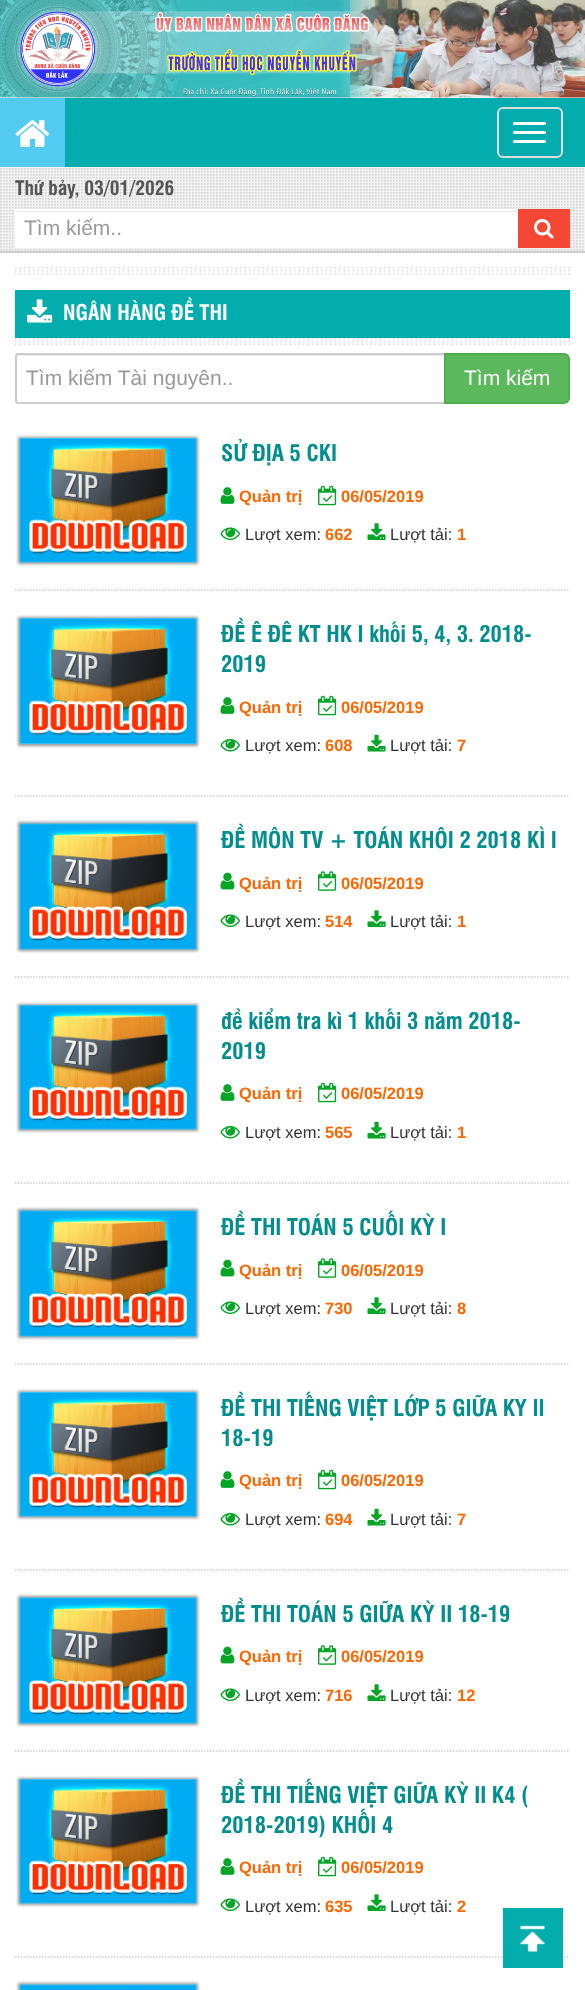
async function draw(canvas) {
  canvas.width = 585;
  canvas.height = 1990;
  const ctx = canvas.getContext('2d');
  ctx.miterLimit = 4;
  ctx.fontKerning = 'normal';
  function label(s, x, y, font, color) {
    ctx.font = font;
    ctx.fillStyle = color;
    ctx.fillText(s, x, y);
  }
  function rect(x, y, w, h, color) {
    ctx.fillStyle = color;
    ctx.fillRect(x, y, w, h);
  }
  function roundedRect(x, y, w, h, r, color) {
    ctx.fillStyle = color;
    ctx.beginPath();
    ctx.roundRect(x, y, w, h, r);
    ctx.fill();
  }
  async function image(src, x, y, w, h) {
    const img = new Image();
    img.src = src;
    await img.decode();
    ctx.drawImage(img, x, y, w, h);
  }
  let path;

  rect(0, 0, 585, 1990, '#fff');
  await image('assets/img1.png', 0, 0, 585, 98);
  rect(65, 98, 520, 69, '#03adad');
  rect(0, 98, 65, 69, '#52caf1');
  await image('assets/img2.png', 15, 120, 35, 27);
  ctx.beginPath();
  ctx.roundRect(498, 108, 64, 49, 5);
  ctx.strokeStyle = '#ddd';
  ctx.lineWidth = 2;
  ctx.stroke();
  roundedRect(513, 122, 33, 3, 1.5, '#fff');
  roundedRect(513, 131, 33, 3, 1.5, '#fff');
  roundedRect(513, 140, 33, 3, 1.5, '#fff');
  rect(0, 167, 585, 84, '#f5f5f5');
  await image('assets/img3.png', 0, 168, 584, 83);
  rect(0, 251, 585, 2, '#ccc');
  label('Thứ bảy, 03/01/2026', 15, 195, 'bold 19.5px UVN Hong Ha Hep', '#555');
  rect(17, 212, 500, 34, '#fff');
  rect(17, 211, 501, 1, '#ececec');
  ctx.strokeStyle = '#fff';
  ctx.strokeRect(16, 210, 502, 37);
  label('Tìm kiếm..', 24, 235, '21px Liberation Sans', '#999');
  rect(518, 209, 52, 39, '#f44835');
  await image('assets/img4.png', 534, 219, 20, 20);
  await image('assets/img5.png', 15, 267, 555, 8);
  rect(15, 290, 555, 48, '#03adad');
  await image('assets/img6.png', 27, 299, 26, 24);
  label('NGÂN HÀNG ĐỀ THI', 63, 320, 'bold 21px UVN Hong Ha Hep', '#fff');
  await image('assets/img7.png', 15, 338, 555, 7);
  ctx.fillStyle = '#ececec';
  path = new Path2D('M18 356H442C443 356 444 356 444 357L443 354H18C17 354 17 355 17 356Z');
  ctx.fill(path);
  ctx.beginPath();
  ctx.roundRect(16, 354, 429, 49, 2);
  ctx.strokeStyle = '#ccc';
  ctx.stroke();
  label('Tìm kiếm Tài nguyên..', 26, 385, '21px Liberation Sans', '#999');
  ctx.fillStyle = '#5cb85c';
  ctx.beginPath();
  ctx.roundRect(445, 354, 124, 49, [0, 5, 5, 0]);
  ctx.fill();
  ctx.strokeStyle = '#4cae4c';
  ctx.stroke();
  label('Tìm kiếm', 464, 385, '21px Liberation Sans', '#fff');
  path = new Path2D('M15 590H570');
  ctx.strokeStyle = '#ccc';
  ctx.lineWidth = 1.5;
  ctx.setLineDash([1.5, 1.5]);
  ctx.stroke(path);
  ctx.fillStyle = '#999';
  ctx.filter = 'blur(1.5px)';
  ctx.beginPath();
  ctx.rect(18, 437, 180, 127);
  ctx.fill();
  ctx.filter = 'none';
  await image('assets/img8.png', 19, 438, 178, 125);
  label('SỬ ĐỊA 5 CKI', 221, 461, 'bold 22.5px UVN Hong Ha Hep', '#028e8e');
  await image('assets/img9.png', 220, 487, 15, 17);
  label('Quản trị', 239, 502, 'bold 16.5px Liberation Sans', '#f60');
  await image('assets/img10.png', 318, 485, 19, 21);
  label('06/05/2019', 341, 502, 'bold 16.5px Liberation Sans', '#f60');
  await image('assets/img11.png', 220, 527, 20, 13);
  label('Lượt xem:', 245, 540, '16.5px Liberation Sans', '#333');
  label('662', 325, 540, 'bold 16.5px Liberation Sans', '#f60');
  await image('assets/img12.png', 367, 523, 19, 17);
  label('Lượt tải:', 390, 540, '16.5px Liberation Sans', '#333');
  label('1', 457, 540, 'bold 16.5px Liberation Sans', '#f60');
  path = new Path2D('M15 796H570');
  ctx.stroke(path);
  ctx.fillStyle = '#999';
  ctx.filter = 'blur(1.5px)';
  ctx.beginPath();
  ctx.rect(18, 617, 180, 129);
  ctx.fill();
  ctx.filter = 'none';
  await image('assets/img13.png', 19, 618, 178, 126);
  label('ĐỀ Ê ĐÊ KT HK I khối 5, 4, 3. 2018-', 221, 642, 'bold 22.5px UVN Hong Ha Hep', '#028e8e');
  label('2019', 221, 672, 'bold 22.5px UVN Hong Ha Hep', '#028e8e');
  await image('assets/img9.png', 220, 697, 15, 17);
  label('Quản trị', 239, 713, 'bold 16.5px Liberation Sans', '#f60');
  await image('assets/img10.png', 318, 695, 19, 21);
  label('06/05/2019', 341, 713, 'bold 16.5px Liberation Sans', '#f60');
  await image('assets/img14.png', 220, 739, 20, 13);
  label('Lượt xem:', 245, 751, '16.5px Liberation Sans', '#333');
  label('608', 325, 751, 'bold 16.5px Liberation Sans', '#f60');
  await image('assets/img15.png', 367, 734, 19, 18);
  label('Lượt tải:', 390, 751, '16.5px Liberation Sans', '#333');
  label('7', 457, 751, 'bold 16.5px Liberation Sans', '#f60');
  path = new Path2D('M15 977H570');
  ctx.stroke(path);
  ctx.fillStyle = '#999';
  ctx.filter = 'blur(1.5px)';
  ctx.beginPath();
  ctx.rect(18, 822, 180, 129);
  ctx.fill();
  ctx.filter = 'none';
  await image('assets/img16.png', 19, 823, 178, 127);
  label('ĐỀ MÔN TV + TOÁN KHÔI 2 2018 KÌ I', 221, 848, 'bold 22.5px UVN Hong Ha Hep', '#028e8e');
  await image('assets/img17.png', 220, 872, 15, 18);
  label('Quản trị', 239, 889, 'bold 16.5px Liberation Sans', '#f60');
  await image('assets/img18.png', 318, 871, 19, 20);
  label('06/05/2019', 341, 889, 'bold 16.5px Liberation Sans', '#f60');
  await image('assets/img11.png', 220, 914, 20, 13);
  label('Lượt xem:', 245, 927, '16.5px Liberation Sans', '#333');
  label('514', 325, 927, 'bold 16.5px Liberation Sans', '#f60');
  await image('assets/img12.png', 367, 910, 19, 17);
  label('Lượt tải:', 390, 927, '16.5px Liberation Sans', '#333');
  label('1', 457, 927, 'bold 16.5px Liberation Sans', '#f60');
  path = new Path2D('M15 1183H570');
  ctx.stroke(path);
  ctx.fillStyle = '#999';
  ctx.filter = 'blur(1.5px)';
  ctx.beginPath();
  ctx.rect(18, 1004, 180, 127);
  ctx.fill();
  ctx.filter = 'none';
  await image('assets/img8.png', 19, 1005, 178, 125);
  label('đề kiểm tra kì 1 khối 3 năm 2018-', 221, 1029, 'bold 22.5px UVN Hong Ha Hep', '#028e8e');
  label('2019', 221, 1059, 'bold 22.5px UVN Hong Ha Hep', '#028e8e');
  await image('assets/img9.png', 220, 1084, 15, 17);
  label('Quản trị', 239, 1099, 'bold 16.5px Liberation Sans', '#f60');
  await image('assets/img10.png', 318, 1082, 19, 21);
  label('06/05/2019', 341, 1099, 'bold 16.5px Liberation Sans', '#f60');
  await image('assets/img14.png', 220, 1126, 20, 13);
  label('Lượt xem:', 245, 1138, '16.5px Liberation Sans', '#333');
  label('565', 325, 1138, 'bold 16.5px Liberation Sans', '#f60');
  await image('assets/img15.png', 367, 1121, 19, 18);
  label('Lượt tải:', 390, 1138, '16.5px Liberation Sans', '#333');
  label('1', 457, 1138, 'bold 16.5px Liberation Sans', '#f60');
  path = new Path2D('M15 1364H570');
  ctx.stroke(path);
  ctx.fillStyle = '#999';
  ctx.filter = 'blur(1.5px)';
  ctx.beginPath();
  ctx.rect(18, 1209, 180, 129);
  ctx.fill();
  ctx.filter = 'none';
  await image('assets/img16.png', 19, 1210, 178, 127);
  label('ĐỀ THI TOÁN 5 CUỐI KỲ I', 221, 1235, 'bold 22.5px UVN Hong Ha Hep', '#028e8e');
  await image('assets/img17.png', 220, 1259, 15, 18);
  label('Quản trị', 239, 1276, 'bold 16.5px Liberation Sans', '#f60');
  await image('assets/img18.png', 318, 1258, 19, 20);
  label('06/05/2019', 341, 1276, 'bold 16.5px Liberation Sans', '#f60');
  await image('assets/img11.png', 220, 1301, 20, 13);
  label('Lượt xem:', 245, 1314, '16.5px Liberation Sans', '#333');
  label('730', 325, 1314, 'bold 16.5px Liberation Sans', '#f60');
  await image('assets/img12.png', 367, 1297, 19, 17);
  label('Lượt tải:', 390, 1314, '16.5px Liberation Sans', '#333');
  label('8', 457, 1314, 'bold 16.5px Liberation Sans', '#f60');
  path = new Path2D('M15 1570H570');
  ctx.stroke(path);
  ctx.fillStyle = '#999';
  ctx.filter = 'blur(1.5px)';
  ctx.beginPath();
  ctx.rect(18, 1391, 180, 127);
  ctx.fill();
  ctx.filter = 'none';
  await image('assets/img8.png', 19, 1392, 178, 125);
  label('ĐỀ THI TIẾNG VIỆT LỚP 5 GIỮA KY II', 221, 1416, 'bold 22.5px UVN Hong Ha Hep', '#028e8e');
  label('18-19', 221, 1446, 'bold 22.5px UVN Hong Ha Hep', '#028e8e');
  await image('assets/img9.png', 220, 1471, 15, 17);
  label('Quản trị', 239, 1486, 'bold 16.5px Liberation Sans', '#f60');
  await image('assets/img10.png', 318, 1469, 19, 21);
  label('06/05/2019', 341, 1486, 'bold 16.5px Liberation Sans', '#f60');
  await image('assets/img14.png', 220, 1513, 20, 13);
  label('Lượt xem:', 245, 1525, '16.5px Liberation Sans', '#333');
  label('694', 325, 1525, 'bold 16.5px Liberation Sans', '#f60');
  await image('assets/img15.png', 367, 1508, 19, 18);
  label('Lượt tải:', 390, 1525, '16.5px Liberation Sans', '#333');
  label('7', 457, 1525, 'bold 16.5px Liberation Sans', '#f60');
  path = new Path2D('M15 1751H570');
  ctx.stroke(path);
  ctx.fillStyle = '#999';
  ctx.filter = 'blur(1.5px)';
  ctx.beginPath();
  ctx.rect(18, 1596, 180, 129);
  ctx.fill();
  ctx.filter = 'none';
  await image('assets/img19.png', 19, 1597, 178, 127);
  label('ĐỀ THI TOÁN 5 GIỮA KỲ II 18-19', 221, 1622, 'bold 22.5px UVN Hong Ha Hep', '#028e8e');
  await image('assets/img17.png', 220, 1646, 15, 18);
  label('Quản trị', 239, 1662, 'bold 16.5px Liberation Sans', '#f60');
  await image('assets/img18.png', 318, 1645, 19, 20);
  label('06/05/2019', 341, 1662, 'bold 16.5px Liberation Sans', '#f60');
  await image('assets/img11.png', 220, 1688, 20, 13);
  label('Lượt xem:', 245, 1701, '16.5px Liberation Sans', '#333');
  label('716', 325, 1701, 'bold 16.5px Liberation Sans', '#f60');
  await image('assets/img12.png', 367, 1684, 19, 17);
  label('Lượt tải:', 390, 1701, '16.5px Liberation Sans', '#333');
  label('12', 457, 1701, 'bold 16.5px Liberation Sans', '#f60');
  path = new Path2D('M15 1957H570');
  ctx.stroke(path);
  ctx.fillStyle = '#999';
  ctx.filter = 'blur(1.5px)';
  ctx.beginPath();
  ctx.rect(18, 1778, 180, 127);
  ctx.fill();
  ctx.filter = 'none';
  await image('assets/img8.png', 19, 1779, 178, 125);
  label('ĐỀ THI TIẾNG VIỆT GIỮA KỲ II K4 (', 221, 1803, 'bold 22.5px UVN Hong Ha Hep', '#028e8e');
  label('2018-2019) KHỐI 4', 221, 1833, 'bold 22.5px UVN Hong Ha Hep', '#028e8e');
  await image('assets/img9.png', 220, 1858, 15, 17);
  label('Quản trị', 239, 1873, 'bold 16.5px Liberation Sans', '#f60');
  await image('assets/img10.png', 318, 1856, 19, 21);
  label('06/05/2019', 341, 1873, 'bold 16.5px Liberation Sans', '#f60');
  await image('assets/img11.png', 220, 1898, 20, 13);
  label('Lượt xem:', 245, 1912, '16.5px Liberation Sans', '#333');
  label('635', 325, 1912, 'bold 16.5px Liberation Sans', '#f60');
  await image('assets/img12.png', 367, 1894, 19, 17);
  label('Lượt tải:', 390, 1912, '16.5px Liberation Sans', '#333');
  label('2', 457, 1912, 'bold 16.5px Liberation Sans', '#f60');
  ctx.fillStyle = '#999';
  ctx.filter = 'blur(1.5px)';
  ctx.beginPath();
  ctx.rect(18, 1983, 180, 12);
  ctx.fill();
  ctx.filter = 'none';
  await image('assets/img20.png', 19, 1984, 178, 6);
  rect(503, 1908, 60, 60, '#03adad');
  await image('assets/img21.png', 520, 1925, 25, 27);
}

draw(document.querySelector('canvas'));
